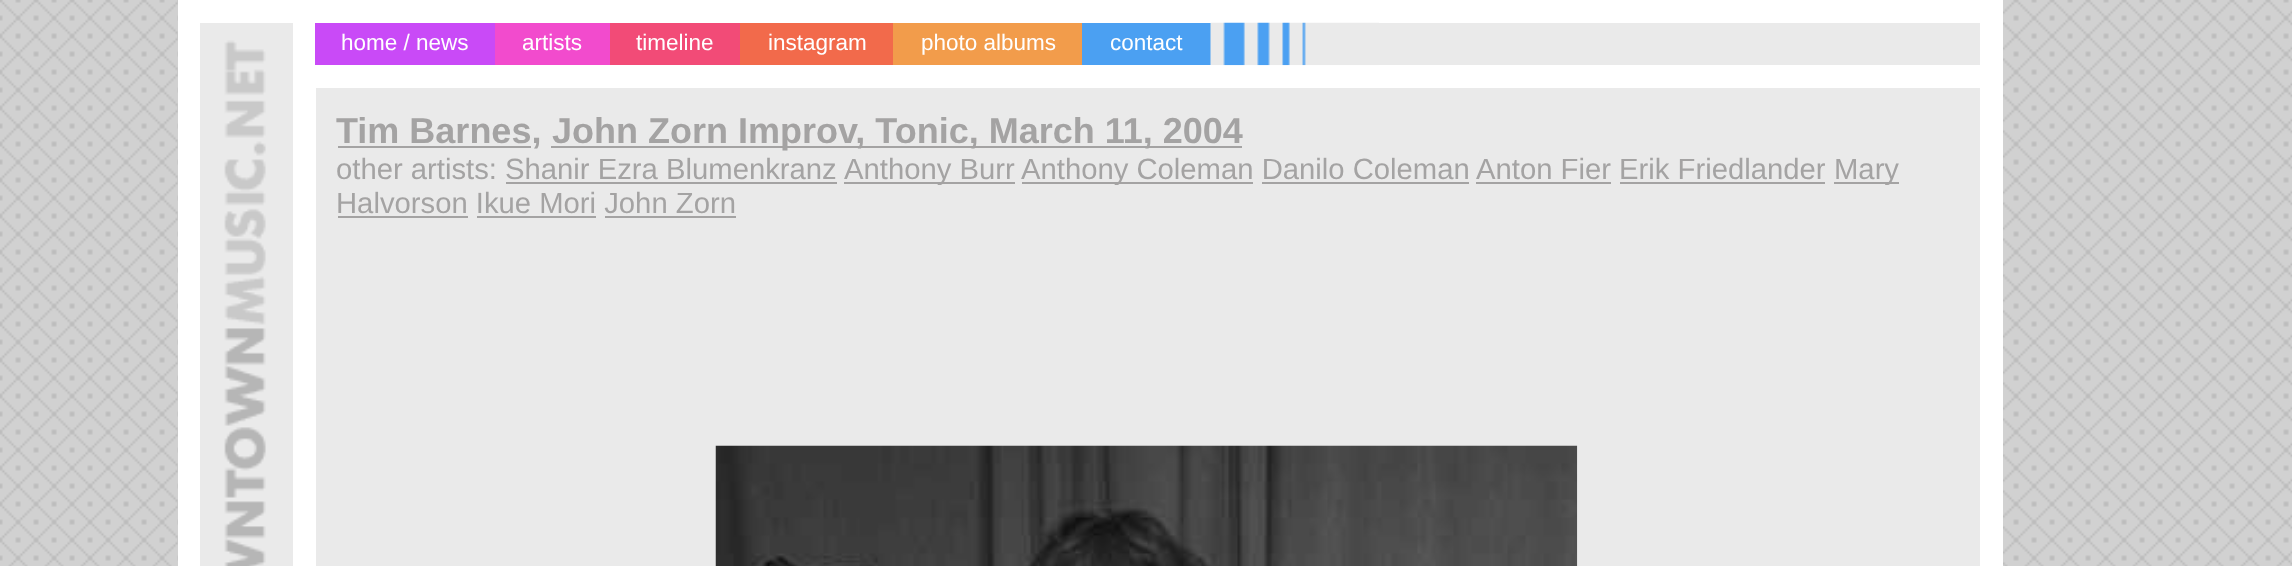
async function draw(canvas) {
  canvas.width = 2292;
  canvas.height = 566;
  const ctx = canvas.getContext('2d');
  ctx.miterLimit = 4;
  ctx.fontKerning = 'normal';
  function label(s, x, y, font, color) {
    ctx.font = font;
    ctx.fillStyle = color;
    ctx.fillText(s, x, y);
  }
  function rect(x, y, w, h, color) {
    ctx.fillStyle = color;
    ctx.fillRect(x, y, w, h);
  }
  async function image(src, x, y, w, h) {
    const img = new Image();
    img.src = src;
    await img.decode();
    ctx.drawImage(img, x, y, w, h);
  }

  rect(0, 0, 2292, 566, '#fff');
  await image('assets/img1.png', 0, 0, 2292, 566);
  ctx.fillStyle = '#eaeaea';
  ctx.beginPath();
  ctx.rect(304.5, 11.5, 1687, 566);
  ctx.fill();
  ctx.strokeStyle = '#fff';
  ctx.lineWidth = 23;
  ctx.stroke();
  rect(200, 23, 93, 543, '#eaeaea');
  await image('assets/img2.png', 224, 40, 42, 526);
  rect(200, 0, 93, 23, '#fff');
  rect(178, 0, 22, 566, '#fff');
  rect(316, 65, 1664, 23, '#fff');
  rect(315, 23, 180, 42, '#c94af7');
  label('home / news', 341, 50, '22.5px Liberation Sans', '#fff');
  rect(495, 23, 115, 42, '#f24bcd');
  label('artists', 522, 50, '22.5px Liberation Sans', '#fff');
  rect(610, 23, 130, 42, '#f24b77');
  label('timeline', 636, 50, '22.5px Liberation Sans', '#fff');
  rect(740, 23, 153, 42, '#f26a4b');
  label('instagram', 768, 50, '22.5px Liberation Sans', '#fff');
  rect(893, 23, 189, 42, '#f29c4b');
  label('photo albums', 921, 50, '22.5px Liberation Sans', '#fff');
  rect(1082, 23, 129, 42, '#4ba0f2');
  label('contact', 1110, 50, '22.5px Liberation Sans', '#fff');
  await image('assets/img3.png', 1210, 22, 169, 44);
  rect(338, 146, 193, 2, '#a4a3a3');
  label('Tim Barnes,', 336, 143, 'bold 36px Liberation Sans', '#a4a3a3');
  rect(551, 146, 691, 2, '#a4a3a3');
  label('John Zorn Improv, Tonic, March 11, 2004', 552, 143, 'bold 36px Liberation Sans', '#a4a3a3');
  label('other artists: Shanir Ezra Blumenkranz', 336, 179, '29.25px Liberation Sans', '#a4a3a3');
  rect(844, 182, 171, 2, '#a4a3a3');
  label('Anthony Burr', 844, 179, '29.25px Liberation Sans', '#a4a3a3');
  rect(1022, 182, 231, 2, '#a4a3a3');
  label('Anthony Coleman Danilo Coleman', 1021, 179, '29.25px Liberation Sans', '#a4a3a3');
  label('Anton Fier Erik Friedlander', 1476, 179, '29.25px Liberation Sans', '#a4a3a3');
  rect(1476, 182, 135, 2, '#a4a3a3');
  rect(1834, 182, 65, 2, '#a4a3a3');
  label('Mary', 1834, 179, '29.25px Liberation Sans', '#a4a3a3');
  rect(506, 182, 331, 2, '#a4a3a3');
  rect(1262, 182, 207, 2, '#a4a3a3');
  rect(1620, 182, 205, 2, '#a4a3a3');
  label('Halvorson Ikue Mori John Zorn', 336, 213, '29.25px Liberation Sans', '#a4a3a3');
  rect(338, 216, 130, 2, '#a4a3a3');
  rect(477, 216, 119, 2, '#a4a3a3');
  rect(605, 216, 131, 2, '#a4a3a3');
  await image('assets/img4.png', 715, 445, 863, 121);
}

draw(document.querySelector('canvas'));
